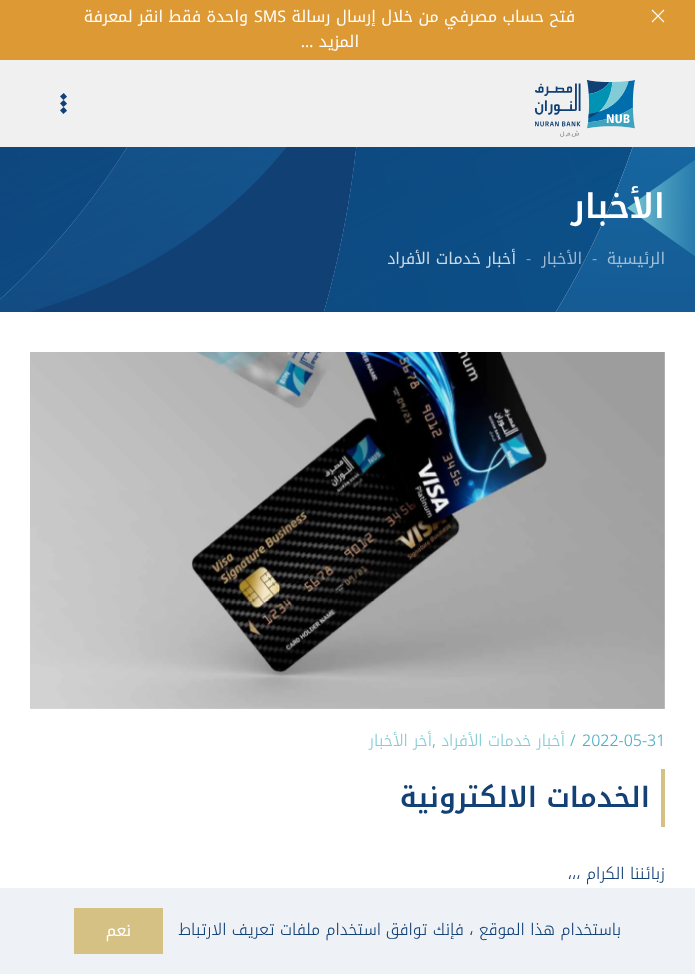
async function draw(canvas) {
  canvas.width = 695;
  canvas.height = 974;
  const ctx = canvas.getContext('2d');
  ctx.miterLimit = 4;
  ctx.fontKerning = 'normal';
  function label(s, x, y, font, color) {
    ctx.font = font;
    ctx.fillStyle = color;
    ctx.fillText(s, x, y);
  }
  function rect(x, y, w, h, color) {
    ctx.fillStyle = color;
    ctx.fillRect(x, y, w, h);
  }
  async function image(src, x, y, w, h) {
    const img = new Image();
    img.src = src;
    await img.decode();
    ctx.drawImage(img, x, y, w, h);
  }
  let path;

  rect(0, 0, 695, 974, '#fff');
  rect(0, 0, 695, 60, '#d93');
  path = new Path2D('M652 10L664 22M664 10L652 22');
  ctx.strokeStyle = '#fff';
  ctx.lineWidth = 1.1;
  ctx.stroke(path);
  ctx.direction = 'rtl';
  label('فتح حساب مصرفي من خلال إرسال رسالة', 575, 22, '16px Noto Kufi Arabic', '#fff');
  ctx.direction = 'ltr';
  label('SMS', 254, 22, '16px Noto Kufi Arabic', '#fff');
  ctx.direction = 'rtl';
  label('واحدة فقط', 248, 22, '16px Noto Kufi Arabic', '#fff');
  label('انقر لمعرفة', 163, 22, '16px Noto Kufi Arabic', '#fff');
  label('المزيد …', 359, 47, '16px Noto Kufi Arabic', '#fff');
  rect(0, 60, 695, 87, '#f0f0f1');
  await image('assets/img1.png', 535, 80, 100, 57);
  await image('assets/img2.png', 60, 93, 7, 21);
  await image('assets/img3.png', 0, 147, 695, 165);
  label('الرئيسية', 665, 264, '16px Noto Kufi Arabic', '#a1bfd6');
  await image('assets/img4.png', 627, 160, 68, 96);
  label('الأخبار', 665, 218, '600 34px Noto Kufi Arabic', '#fff');
  ctx.direction = 'ltr';
  label('-', 592, 264, '300 16px Noto Kufi Arabic', '#a1bfd6');
  ctx.direction = 'rtl';
  label('الأخبار', 582, 264, '16px Noto Kufi Arabic', '#9eb8cf');
  ctx.direction = 'ltr';
  label('-', 526, 264, '300 16px Noto Kufi Arabic', '#9eb8cf');
  ctx.direction = 'rtl';
  label('أخبار خدمات الأفراد', 516, 264, '16px Noto Kufi Arabic', '#cedbe6');
  await image('assets/img5.png', 30, 352, 635, 357);
  ctx.direction = 'ltr';
  label('2022-05-31', 582, 746, '300 16px Noto Kufi Arabic', '#50b0c8');
  label('/', 570, 746, '300 16px Noto Kufi Arabic', '#50b0c8');
  ctx.direction = 'rtl';
  label('أخبار خدمات الأفراد', 565, 746, '300 16px Noto Kufi Arabic', '#81ccd6');
  ctx.direction = 'ltr';
  label(',', 432, 746, '300 16px Noto Kufi Arabic', '#50b0c8');
  ctx.direction = 'rtl';
  label('أخر الأخبار', 432, 746, '300 16px Noto Kufi Arabic', '#81ccd6');
  rect(661, 769, 4, 58, '#d6c184');
  label('الخدمات الالكترونية', 650, 807, '600 28px Noto Kufi Arabic', '#134175');
  label('زبائننا الكرام ،،،', 665, 879, '300 16px Noto Kufi Arabic', '#134175');
  rect(0, 888, 695, 86, '#eef1f5');
  label('باستخدام هذا الموقع ، فإنك توافق', 621, 935, '300 16px Noto Kufi Arabic', '#134175');
  label('استخدام ملفات تعريف الارتباط', 381, 935, '300 16px Noto Kufi Arabic', '#134175');
  rect(74, 908, 89, 46, '#d6c184');
  label('نعم', 131, 936, '16px Noto Kufi Arabic', '#fff');
}

draw(document.querySelector('canvas'));
